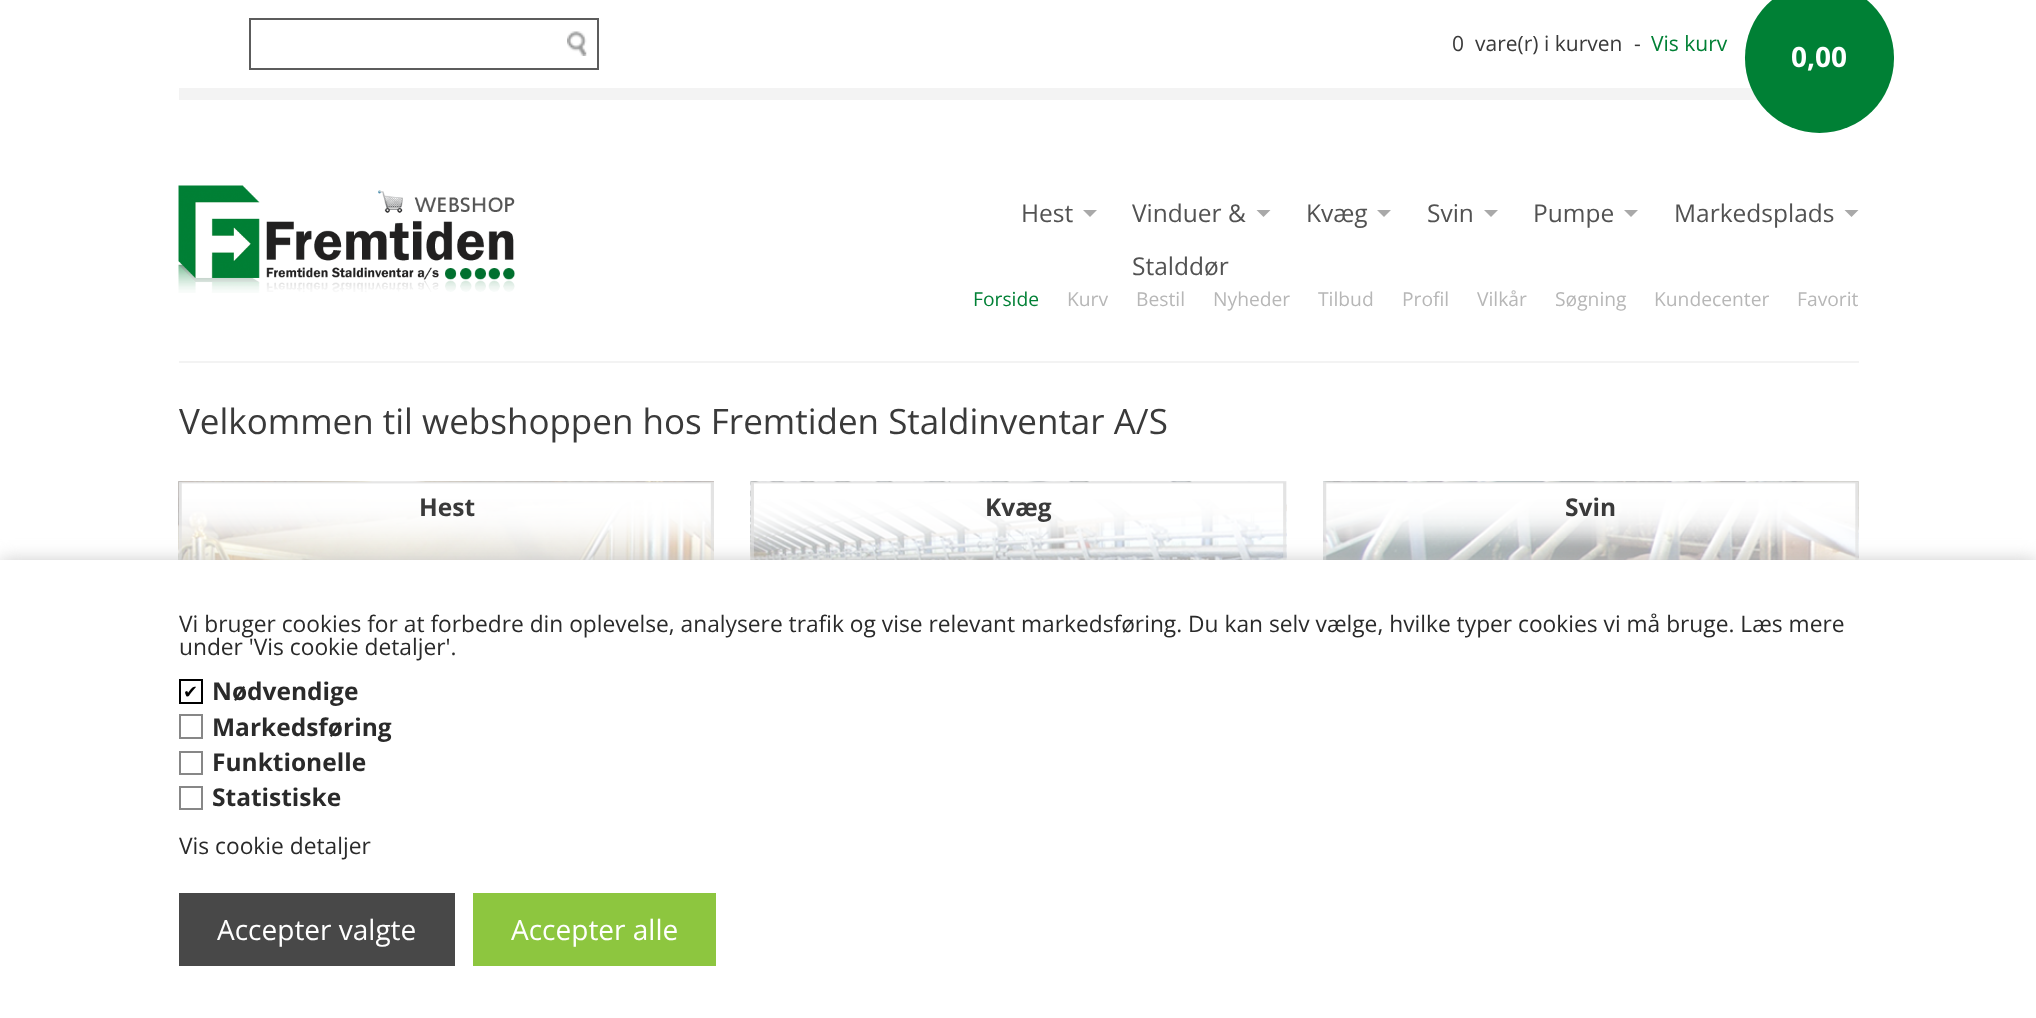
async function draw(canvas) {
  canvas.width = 2036;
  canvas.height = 1018;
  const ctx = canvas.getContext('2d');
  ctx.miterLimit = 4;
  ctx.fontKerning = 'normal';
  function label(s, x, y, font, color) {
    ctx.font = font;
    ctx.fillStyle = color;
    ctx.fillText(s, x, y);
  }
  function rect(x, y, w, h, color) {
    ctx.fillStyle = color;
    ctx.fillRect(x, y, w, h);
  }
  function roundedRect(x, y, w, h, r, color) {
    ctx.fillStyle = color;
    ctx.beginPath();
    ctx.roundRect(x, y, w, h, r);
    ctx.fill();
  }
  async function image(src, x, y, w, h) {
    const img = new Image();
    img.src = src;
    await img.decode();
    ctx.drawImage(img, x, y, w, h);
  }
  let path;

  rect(0, 0, 2036, 1018, '#fff');
  rect(179, 88, 1579, 12, '#f3f3f3');
  await image('assets/img1.png', 567, 31, 20, 25);
  ctx.strokeStyle = '#5c5c5c';
  ctx.lineWidth = 2;
  ctx.strokeRect(250, 19, 348, 50);
  label('0', 1452, 51, '21px Open Sans', '#3a3a3a');
  label('vare(r) i kurven', 1475, 51, '21px Open Sans', '#3a3a3a');
  label('-', 1634, 51, '21px Open Sans', '#3a3a3a');
  label('Vis kurv', 1651, 51, '21px Open Sans', '#008035');
  roundedRect(1745, -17, 149, 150, 74.5, '#008035');
  label('0,00', 1791, 67, 'bold 28px Open Sans', '#fff');
  rect(179, 361, 1680, 2, '#f3f3f3');
  await image('assets/img2.png', 178, 185, 337, 108);
  label('Hest', 1021, 222, '24.5px Open Sans', '#525252');
  ctx.fillStyle = '#a9a9a9';
  path = new Path2D('M1083 210H1097L1090 217Z');
  ctx.fill(path);
  label('Vinduer &', 1132, 222, '24.5px Open Sans', '#525252');
  ctx.fillStyle = '#a9a9a9';
  path = new Path2D('M1256.5 210H1270.5L1263.5 217Z');
  ctx.fill(path);
  label('Stalddør', 1132, 275, '24.5px Open Sans', '#525252');
  label('Kvæg', 1306, 222, '24.5px Open Sans', '#525252');
  ctx.fillStyle = '#a9a9a9';
  path = new Path2D('M1377 210H1391L1384 217Z');
  ctx.fill(path);
  label('Svin', 1427, 222, '24.5px Open Sans', '#525252');
  ctx.fillStyle = '#a9a9a9';
  path = new Path2D('M1484 210H1498L1491 217Z');
  ctx.fill(path);
  label('Pumpe', 1533, 222, '24.5px Open Sans', '#525252');
  ctx.fillStyle = '#a9a9a9';
  path = new Path2D('M1624 210H1638L1631 217Z');
  ctx.fill(path);
  label('Markedsplads', 1674, 222, '24.5px Open Sans', '#525252');
  ctx.fillStyle = '#a9a9a9';
  path = new Path2D('M1844.5 210H1858.5L1851.5 217Z');
  ctx.fill(path);
  label('Forside', 973, 306, '19.25px Open Sans', '#008035');
  label('Kurv', 1067, 306, '19.25px Open Sans', '#b7b7b7');
  label('Bestil', 1136, 306, '19.25px Open Sans', '#b7b7b7');
  label('Nyheder', 1213, 306, '19.25px Open Sans', '#b7b7b7');
  label('Tilbud', 1318, 306, '19.25px Open Sans', '#b7b7b7');
  label('Profil', 1402, 306, '19.25px Open Sans', '#b7b7b7');
  label('Vilkår', 1477, 306, '19.25px Open Sans', '#b7b7b7');
  label('Søgning', 1555, 306, '19.25px Open Sans', '#b7b7b7');
  label('Kundecenter', 1654, 306, '19.25px Open Sans', '#b7b7b7');
  label('Favorit', 1797, 306, '19.25px Open Sans', '#b7b7b7');
  label('Velkommen til webshoppen hos Fremtiden Staldinventar A/S', 179, 434, '35px Open Sans', '#3a3a3a');
  await image('assets/img3.png', 178, 481, 536, 79);
  await image('assets/img4.png', 178, 481, 536, 79);
  label('Hest', 419, 516, 'bold 24.5px Open Sans', '#3a3a3a');
  await image('assets/img5.png', 750, 481, 537, 79);
  await image('assets/img6.png', 750, 481, 537, 79);
  label('Kvæg', 985, 516, 'bold 24.5px Open Sans', '#3a3a3a');
  await image('assets/img7.png', 1323, 481, 536, 79);
  await image('assets/img8.png', 1323, 481, 536, 79);
  label('Svin', 1565, 516, 'bold 24.5px Open Sans', '#3a3a3a');
  ctx.fillStyle = '#ccc';
  ctx.filter = 'blur(9px)';
  ctx.beginPath();
  ctx.rect(0, 560, 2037, 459);
  ctx.fill();
  ctx.filter = 'none';
  rect(0, 560, 2036, 458, '#fff');
  label('Vi bruger cookies for at forbedre din oplevelse, analysere trafik og vise relevant markedsføring. Du kan selv vælge, hvilke typer cookies vi må bruge. Læs mere', 179, 632, '22.75px Open Sans', '#2a2a2a');
  label('under \'Vis cookie detaljer\'.', 179, 655, '22.75px Open Sans', '#2a2a2a');
  ctx.strokeStyle = '#000';
  ctx.strokeRect(180, 680, 22, 23);
  label('✔', 183, 698, '18px DejaVu Sans', '#000');
  label('Nødvendige', 212, 700, 'bold 24.5px Open Sans', '#2a2a2a');
  ctx.strokeStyle = '#878787';
  ctx.strokeRect(180, 715, 22, 23);
  label('Markedsføring', 212, 736, 'bold 24.5px Open Sans', '#2a2a2a');
  ctx.strokeRect(180, 752, 22, 22);
  label('Funktionelle', 212, 771, 'bold 24.5px Open Sans', '#2a2a2a');
  ctx.strokeRect(180, 787, 22, 22);
  label('Statistiske', 212, 806, 'bold 24.5px Open Sans', '#2a2a2a');
  label('Vis cookie detaljer', 179, 854, '22.75px Open Sans', '#2a2a2a');
  rect(179, 893, 276, 73, '#484848');
  label('Accepter valgte', 217, 940, '28px Open Sans', '#fff');
  rect(473, 893, 243, 73, '#8dc63f');
  label('Accepter alle', 511, 940, '28px Open Sans', '#fff');
}

draw(document.querySelector('canvas'));
